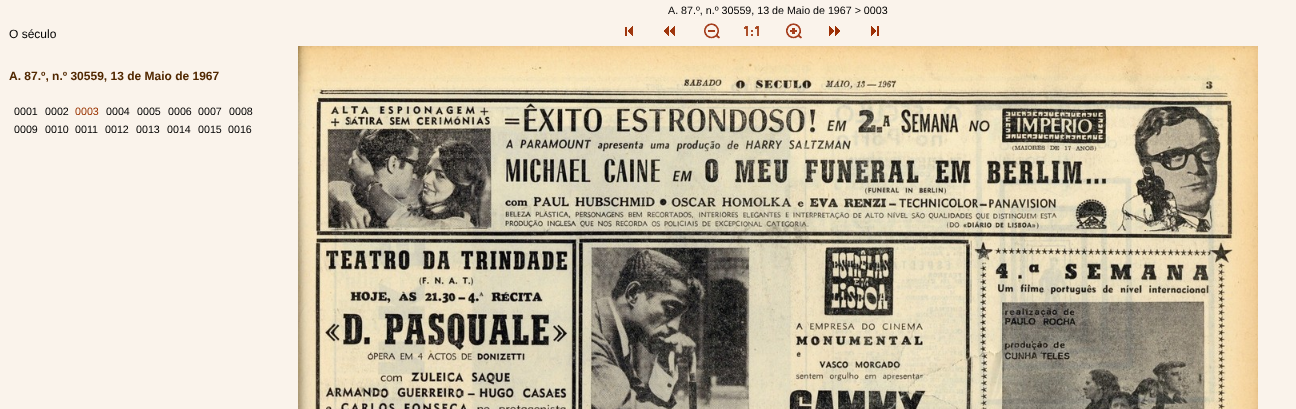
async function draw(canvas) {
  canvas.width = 1296;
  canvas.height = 409;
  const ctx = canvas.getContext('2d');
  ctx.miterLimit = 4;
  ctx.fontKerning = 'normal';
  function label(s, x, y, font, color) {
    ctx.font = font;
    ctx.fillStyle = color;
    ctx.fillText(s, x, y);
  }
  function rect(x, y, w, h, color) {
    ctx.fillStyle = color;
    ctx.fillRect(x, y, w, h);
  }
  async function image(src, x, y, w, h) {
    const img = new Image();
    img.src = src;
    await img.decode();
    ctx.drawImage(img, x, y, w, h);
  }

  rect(0, 0, 1296, 409, '#faf3eb');
  label('A. 87.º, n.º 30559, 13 de Maio de 1967 > 0003', 668, 14, '10.7px Liberation Sans', '#000');
  await image('assets/img1.png', 625, 26, 8, 10);
  await image('assets/img2.png', 664, 26, 11, 10);
  await image('assets/img3.png', 704, 23, 16, 16);
  await image('assets/img4.png', 744, 26, 15, 10);
  await image('assets/img5.png', 786, 23, 16, 16);
  await image('assets/img6.png', 829, 26, 11, 10);
  await image('assets/img7.png', 871, 26, 8, 10);
  await image('assets/img8.png', 298, 46, 960, 363);
  label('O século', 9, 38, '12px Liberation Sans', '#000');
  label('A. 87.º, n.º 30559, 13 de Maio de 1967', 9, 80, 'bold 12px Liberation Sans', '#512800');
  label('0001', 14, 115, '10.7px Liberation Sans', '#000');
  label('0002', 45, 115, '10.7px Liberation Sans', '#000');
  label('0003', 75, 115, '10.7px Liberation Sans', '#930');
  label('0004', 106, 115, '10.7px Liberation Sans', '#000');
  label('0005', 137, 115, '10.7px Liberation Sans', '#000');
  label('0006', 168, 115, '10.7px Liberation Sans', '#000');
  label('0007', 198, 115, '10.7px Liberation Sans', '#000');
  label('0008', 229, 115, '10.7px Liberation Sans', '#000');
  label('0009', 14, 133, '10.7px Liberation Sans', '#000');
  label('0010', 45, 133, '10.7px Liberation Sans', '#000');
  label('0011', 75, 133, '10.7px Liberation Sans', '#000');
  label('0012', 105, 133, '10.7px Liberation Sans', '#000');
  label('0013', 136, 133, '10.7px Liberation Sans', '#000');
  label('0014', 167, 133, '10.7px Liberation Sans', '#000');
  label('0015', 198, 133, '10.7px Liberation Sans', '#000');
  label('0016', 228, 133, '10.7px Liberation Sans', '#000');
}

draw(document.querySelector('canvas'));
